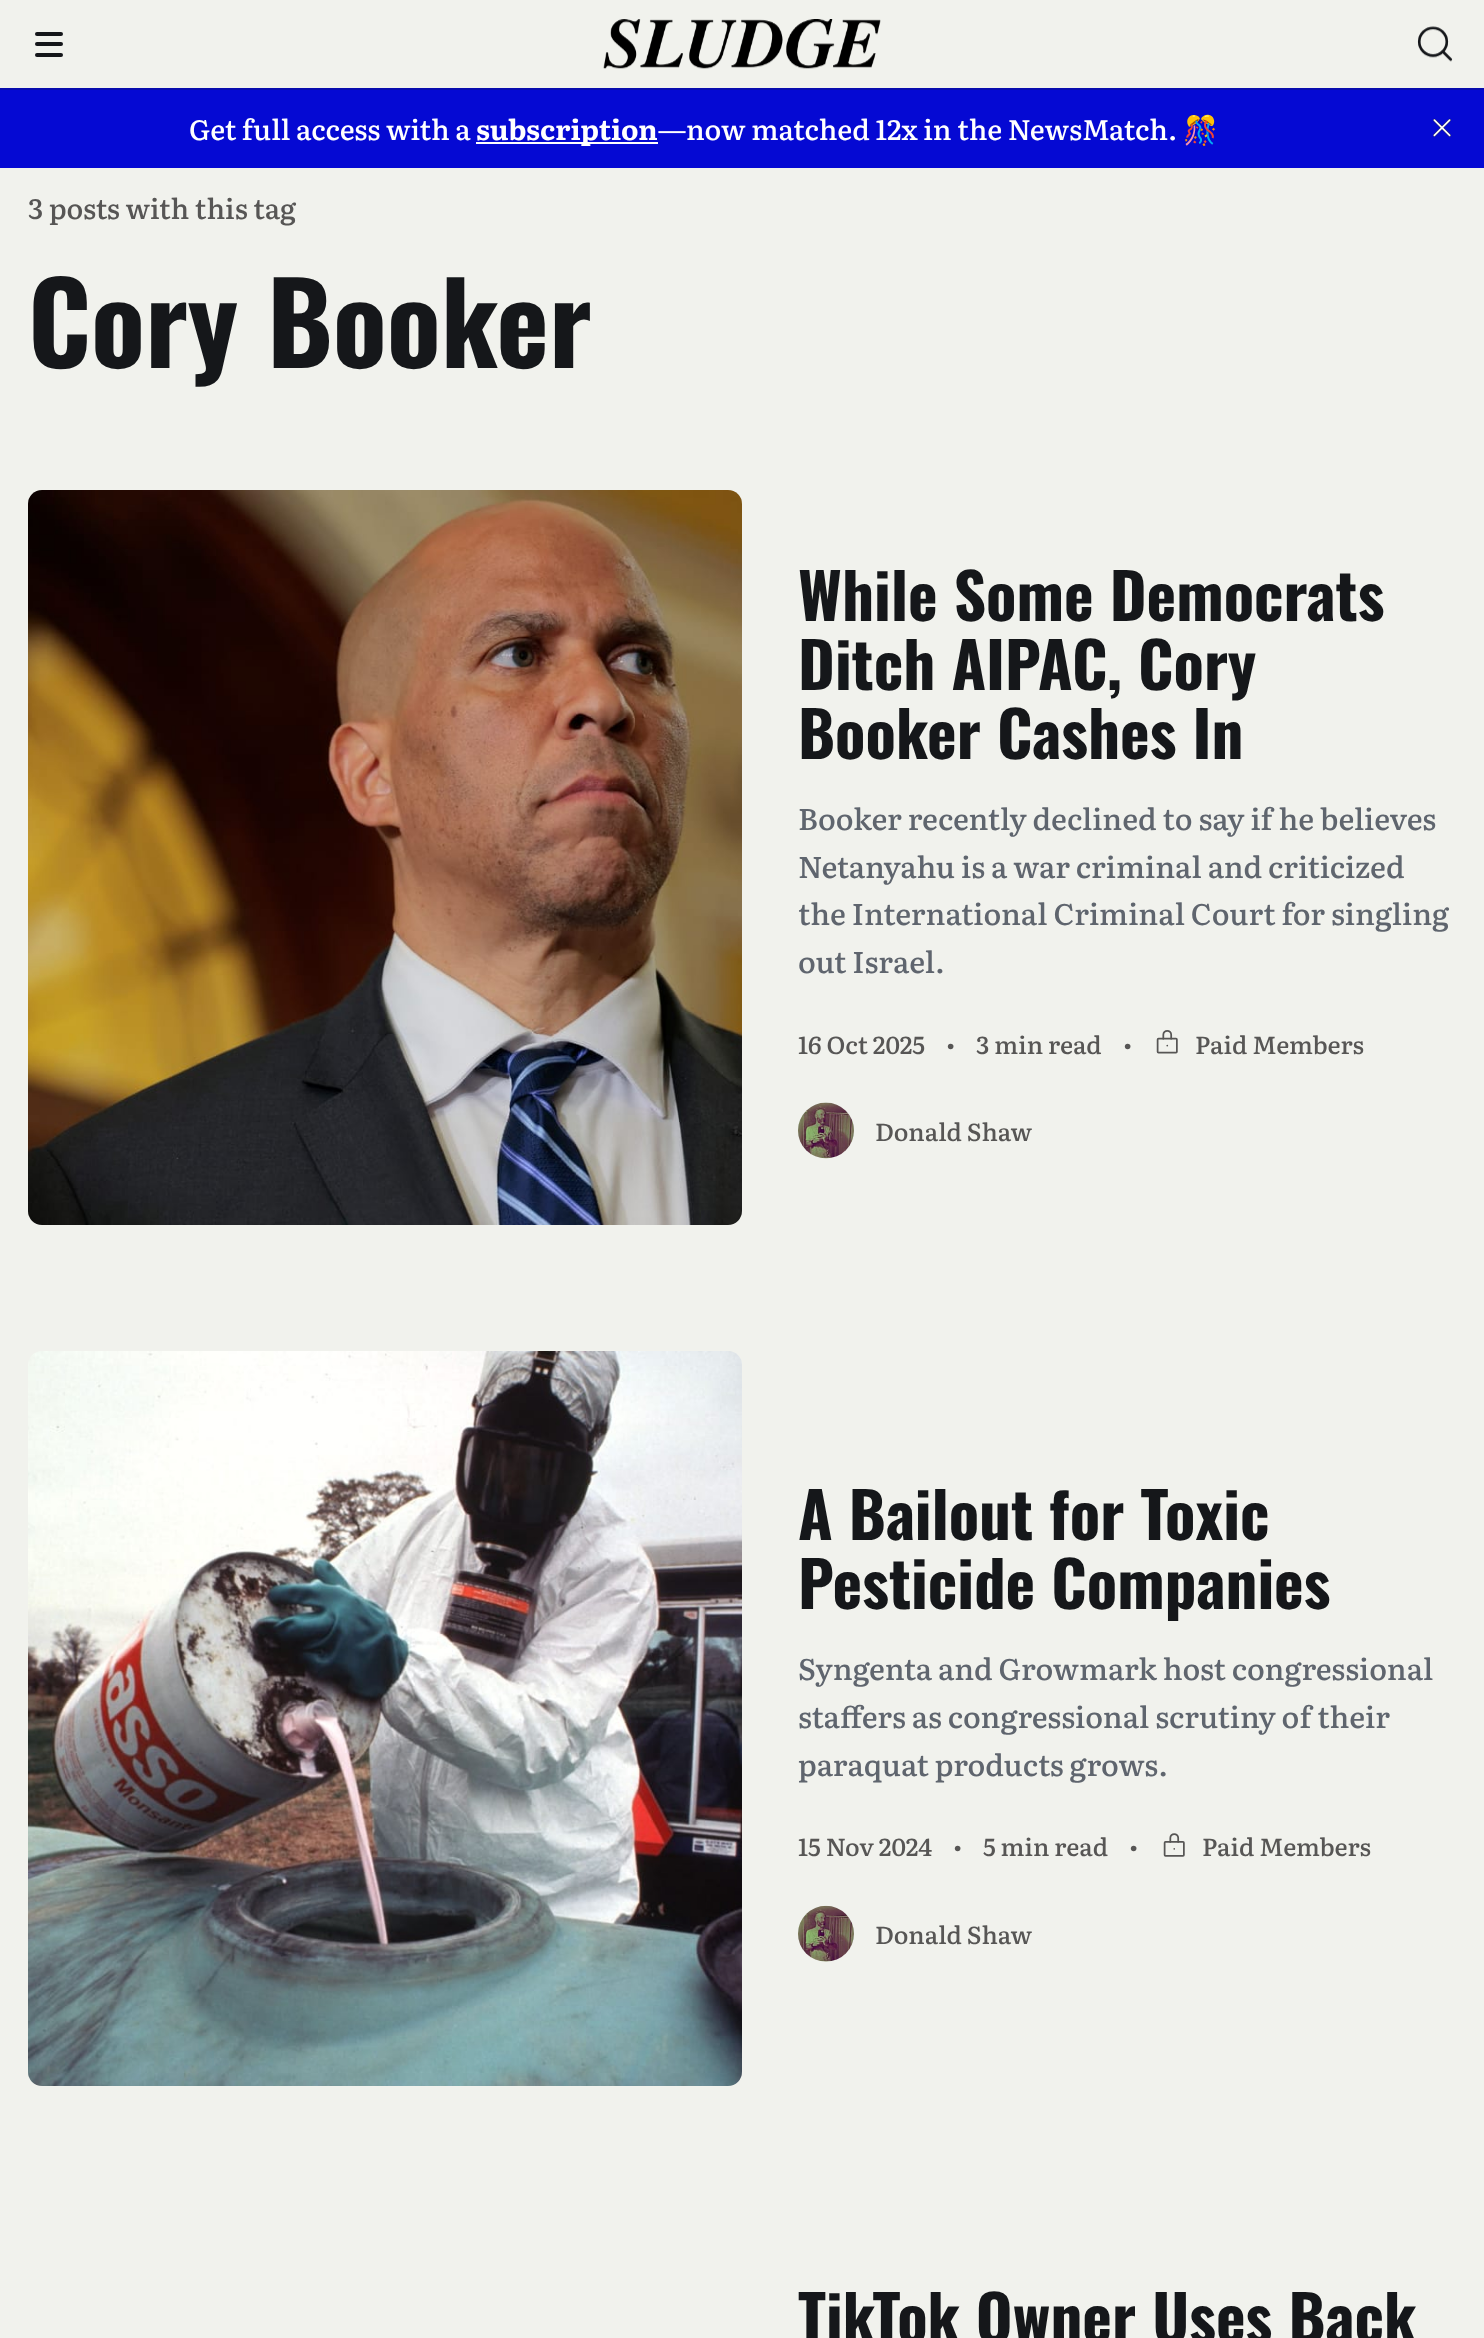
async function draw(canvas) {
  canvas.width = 1484;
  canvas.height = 2338;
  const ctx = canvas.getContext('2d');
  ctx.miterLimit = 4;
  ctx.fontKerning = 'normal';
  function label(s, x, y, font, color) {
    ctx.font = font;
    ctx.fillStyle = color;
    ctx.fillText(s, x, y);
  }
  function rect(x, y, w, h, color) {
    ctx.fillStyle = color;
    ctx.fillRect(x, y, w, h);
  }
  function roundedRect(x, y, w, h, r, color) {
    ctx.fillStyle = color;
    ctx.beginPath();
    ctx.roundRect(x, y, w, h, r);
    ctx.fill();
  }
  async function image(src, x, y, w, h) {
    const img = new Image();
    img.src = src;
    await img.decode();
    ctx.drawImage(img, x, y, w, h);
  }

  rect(0, 0, 1484, 2338, '#f1f2ed');
  roundedRect(35, 32, 28, 4, 2, '#15171a');
  roundedRect(35, 42, 28, 4, 2, '#15171a');
  roundedRect(35, 53, 28, 4, 2, '#15171a');
  await image('assets/img1.png', 603, 19, 278, 50);
  await image('assets/img2.png', 1417, 26, 36, 36);
  rect(0, 88, 1484, 2, '#080cae');
  rect(0, 90, 1484, 78, '#0509d3');
  label('Get full access with a', 189, 140, '500 28px Literata', '#fff');
  rect(476, 142, 182, 2, '#fff');
  label('subscription', 476, 140, 'bold 28px Literata', '#fff');
  label('—now matched 12x in the NewsMatch.', 658, 140, '500 28px Literata', '#fff');
  label('🎊', 1183, 140, '28px Noto Color Emoji', '#fff');
  await image('assets/img3.png', 1433, 118, 18, 19);
  label('3 posts with this tag', 28, 219, '500 28px Literata', '#575655');
  label('Cory Booker', 28, 368, 'bold 112px Oswald', '#15171a');
  await image('assets/img4.png', 28, 490, 714, 735);
  label('While Some Democrats', 798, 621, 'bold 63px Oswald', '#15171a');
  label('Ditch AIPAC, Cory', 798, 690, 'bold 63px Oswald', '#15171a');
  label('Booker Cashes In', 798, 759, 'bold 63px Oswald', '#15171a');
  label('Booker recently declined to say if he believes', 798, 830, '500 29.75px "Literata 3"', '#5f656e');
  label('Netanyahu is a war criminal and criticized', 798, 878, '500 29.75px "Literata 3"', '#5f656e');
  label('the International Criminal Court for singling', 798, 925, '500 29.75px "Literata 3"', '#5f656e');
  label('out Israel.', 798, 973, '500 29.75px "Literata 3"', '#5f656e');
  label('16 Oct 2025', 798, 1054, '500 24.5px "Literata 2"', '#575655');
  label('•', 946, 1054, '500 24.5px "Literata 2"', '#575655');
  label('3 min read', 976, 1054, '500 24.5px "Literata 2"', '#575655');
  label('•', 1123, 1054, '500 24.5px "Literata 2"', '#575655');
  await image('assets/img5.png', 1156, 1030, 22, 24);
  label('Paid Members', 1195, 1054, '500 24.5px "Literata 2"', '#575655');
  await image('assets/img6.png', 798, 1102, 56, 56);
  await image('assets/img7.png', 798, 1102, 56, 57);
  label('Donald Shaw', 875, 1141, '500 24.5px "Literata 2"', '#575655');
  await image('assets/img8.png', 28, 1351, 714, 735);
  label('A Bailout for Toxic', 798, 1540, 'bold 63px Oswald', '#15171a');
  label('Pesticide Companies', 798, 1609, 'bold 63px Oswald', '#15171a');
  label('Syngenta and Growmark host congressional', 798, 1680, '500 29.75px "Literata 3"', '#5f656e');
  label('staffers as congressional scrutiny of their', 798, 1728, '500 29.75px "Literata 3"', '#5f656e');
  label('paraquat products grows.', 798, 1776, '500 29.75px "Literata 3"', '#5f656e');
  label('15 Nov 2024', 798, 1856, '500 24.5px "Literata 2"', '#575655');
  label('•', 953, 1856, '500 24.5px "Literata 2"', '#575655');
  label('5 min read', 983, 1856, '500 24.5px "Literata 2"', '#575655');
  label('•', 1129, 1856, '500 24.5px "Literata 2"', '#575655');
  await image('assets/img9.png', 1163, 1833, 22, 24);
  label('Paid Members', 1202, 1856, '500 24.5px "Literata 2"', '#575655');
  await image('assets/img11.png', 798, 1906, 56, 56);
  await image('assets/img10.png', 798, 1905, 56, 57);
  label('Donald Shaw', 875, 1944, '500 24.5px "Literata 2"', '#575655');
  label('TikTok Owner Uses Back', 798, 2343, 'bold 63px Oswald', '#15171a');
}

draw(document.querySelector('canvas'));
